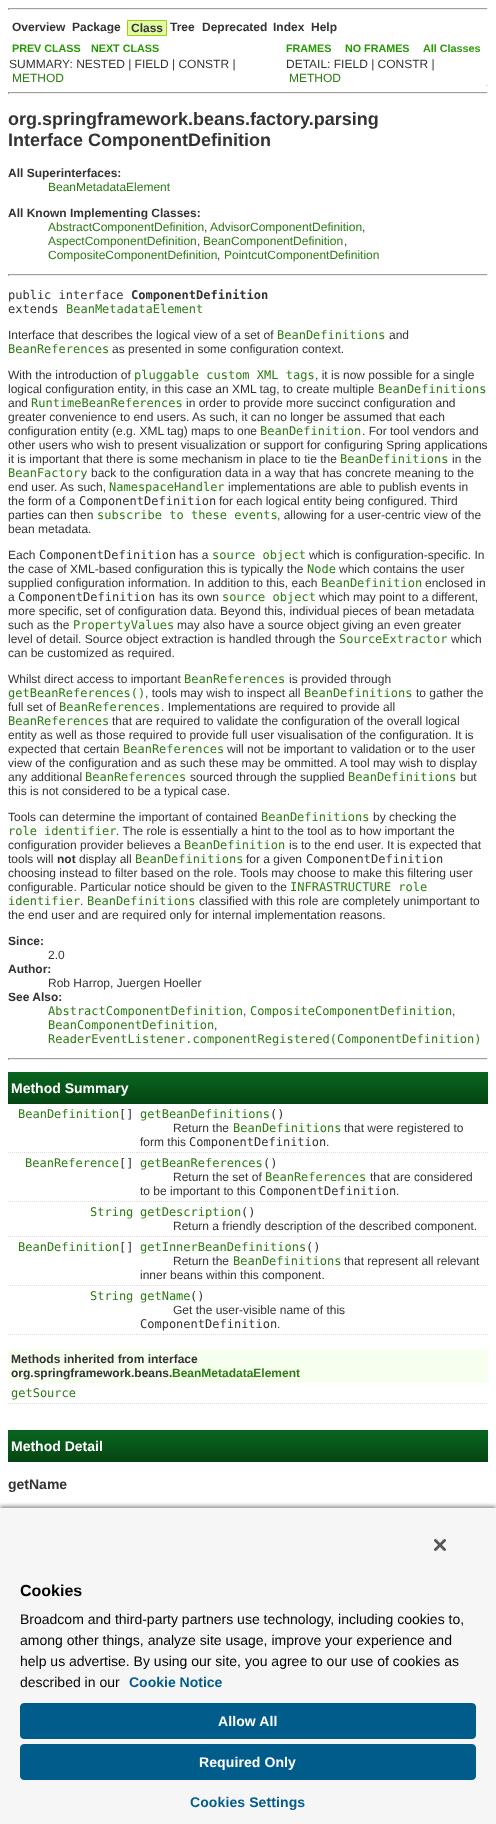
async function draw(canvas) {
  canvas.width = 496;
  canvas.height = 1824;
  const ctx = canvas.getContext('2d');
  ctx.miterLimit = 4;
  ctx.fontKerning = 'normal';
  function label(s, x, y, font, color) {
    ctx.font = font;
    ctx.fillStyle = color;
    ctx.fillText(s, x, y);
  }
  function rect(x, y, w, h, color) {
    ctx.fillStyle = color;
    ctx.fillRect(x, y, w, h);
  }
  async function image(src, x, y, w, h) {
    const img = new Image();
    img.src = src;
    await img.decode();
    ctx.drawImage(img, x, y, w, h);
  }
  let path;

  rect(0, 0, 496, 1824, '#fff');
  rect(8, 8, 480, 1, '#9f9f9f');
  rect(487, 8, 1, 2, '#eee');
  rect(8, 9, 480, 1, '#eee');
  rect(8, 8, 1, 2, '#9f9f9f');
  label('Overview', 12, 31, 'bold 12px Liberation Sans', '#333');
  label('Package', 72, 31, 'bold 12px Liberation Sans', '#333');
  ctx.fillStyle = '#e3faa5';
  ctx.beginPath();
  ctx.rect(127.5, 20.5, 39, 15);
  ctx.fill();
  ctx.strokeStyle = '#9ad00c';
  ctx.stroke();
  label('Class', 131, 32, 'bold 12px Liberation Sans', '#333');
  label('Tree', 170, 31, 'bold 12px Liberation Sans', '#333');
  label('Deprecated', 202, 31, 'bold 12px Liberation Sans', '#333');
  label('Index', 273, 31, 'bold 12px Liberation Sans', '#333');
  label('Help', 311, 31, 'bold 12px Liberation Sans', '#333');
  rect(486, 85, 2, 1, '#ddd');
  label('PREV CLASS', 12, 52, 'bold 10.75px Liberation Sans', '#249901');
  label('NEXT CLASS', 91, 52, 'bold 10.75px Liberation Sans', '#249901');
  label('FRAMES', 286, 52, 'bold 10.75px Liberation Sans', '#249901');
  label('NO FRAMES', 345, 52, 'bold 10.75px Liberation Sans', '#249901');
  label('All Classes', 423, 52, 'bold 10.75px Liberation Sans', '#249901');
  label('SUMMARY: NESTED | FIELD | CONSTR |', 9, 68, '12px Liberation Sans', '#333');
  label('METHOD', 12, 82, '12px Liberation Sans', '#2c7b14');
  label('DETAIL: FIELD | CONSTR |', 286, 68, '12px Liberation Sans', '#333');
  label('METHOD', 289, 82, '12px Liberation Sans', '#2c7b14');
  rect(8, 92, 480, 1, '#9f9f9f');
  rect(487, 92, 1, 2, '#eee');
  rect(8, 93, 480, 1, '#eee');
  rect(8, 92, 1, 2, '#9f9f9f');
  label('org.springframework.beans.factory.parsing', 8, 125, 'bold 18px Liberation Sans', '#333');
  label('Interface ComponentDefinition', 8, 146, 'bold 18px Liberation Sans', '#333');
  label('All Superinterfaces:', 8, 177, 'bold 12px Liberation Sans', '#333');
  label('BeanMetadataElement', 48, 191, '12px Liberation Sans', '#2c7b14');
  label('All Known Implementing Classes:', 8, 217, 'bold 12px Liberation Sans', '#333');
  label('AbstractComponentDefinition', 48, 231, '12px Liberation Sans', '#2c7b14');
  label(',', 204, 231, '12px Liberation Sans', '#333');
  label('AdvisorComponentDefinition', 210, 231, '12px Liberation Sans', '#2c7b14');
  label(',', 362, 231, '12px Liberation Sans', '#333');
  label('AspectComponentDefinition', 48, 245, '12px Liberation Sans', '#2c7b14');
  label(',', 197, 245, '12px Liberation Sans', '#333');
  label('BeanComponentDefinition', 203, 245, '12px Liberation Sans', '#2c7b14');
  label(',', 344, 245, '12px Liberation Sans', '#333');
  label('CompositeComponentDefinition', 48, 259, '12px Liberation Sans', '#2c7b14');
  label(',', 217, 259, '12px Liberation Sans', '#333');
  label('PointcutComponentDefinition', 224, 259, '12px Liberation Sans', '#2c7b14');
  rect(8, 274, 480, 1, '#9f9f9f');
  rect(487, 274, 1, 2, '#eee');
  rect(8, 275, 480, 1, '#eee');
  rect(8, 274, 1, 2, '#9f9f9f');
  label('public interface', 8, 299, '12px DejaVu Sans Mono', '#333');
  label('ComponentDefinition', 131, 299, 'bold 12px DejaVu Sans Mono', '#333');
  label('extends', 8, 313, '12px DejaVu Sans Mono', '#333');
  label('BeanMetadataElement', 66, 313, '12px DejaVu Sans Mono', '#2c7b14');
  label('Interface that describes the logical view of a set of', 8, 339, '12px Liberation Sans', '#333');
  label('BeanDefinitions', 277, 339, '12px DejaVu Sans Mono', '#2c7b14');
  label('and', 389, 339, '12px Liberation Sans', '#333');
  label('BeanReferences', 8, 353, '12px DejaVu Sans Mono', '#2c7b14');
  label('as presented in some configuration context.', 112, 353, '12px Liberation Sans', '#333');
  label('With the introduction of', 8, 379, '12px Liberation Sans', '#333');
  label('pluggable custom XML tags', 134, 379, '12px DejaVu Sans Mono', '#2c7b14');
  label(', it is now possible for a single', 315, 379, '12px Liberation Sans', '#333');
  label('logical configuration entity, in this case an XML tag, to create multiple', 8, 393, '12px Liberation Sans', '#333');
  label('BeanDefinitions', 378, 393, '12px DejaVu Sans Mono', '#2c7b14');
  label('and', 8, 407, '12px Liberation Sans', '#333');
  label('RuntimeBeanReferences', 31, 407, '12px DejaVu Sans Mono', '#2c7b14');
  label('in order to provide more succinct configuration and', 186, 407, '12px Liberation Sans', '#333');
  label('greater convenience to end users. As such, it can no longer be assumed that each', 8, 421, '12px Liberation Sans', '#333');
  label('configuration entity (e.g. XML tag) maps to one', 8, 435, '12px Liberation Sans', '#333');
  label('BeanDefinition', 260, 435, '12px DejaVu Sans Mono', '#2c7b14');
  label('. For tool vendors and', 362, 435, '12px Liberation Sans', '#333');
  label('other users who wish to present visualization or support for configuring Spring applications', 8, 449, '12px Liberation Sans', '#333');
  label('it is important that there is some mechanism in place to tie the', 8, 463, '12px Liberation Sans', '#333');
  label('BeanDefinitions', 340, 463, '12px DejaVu Sans Mono', '#2c7b14');
  label('in the', 452, 463, '12px Liberation Sans', '#333');
  label('BeanFactory', 8, 477, '12px DejaVu Sans Mono', '#2c7b14');
  label('back to the configuration data in a way that has concrete meaning to the', 91, 477, '12px Liberation Sans', '#333');
  label('end user. As such,', 8, 491, '12px Liberation Sans', '#333');
  label('NamespaceHandler', 109, 491, '12px DejaVu Sans Mono', '#2c7b14');
  label('implementations are able to publish events in', 228, 491, '12px Liberation Sans', '#333');
  label('the form of a', 8, 505, '12px Liberation Sans', '#333');
  label('ComponentDefinition', 79, 505, '12px DejaVu Sans Mono', '#333');
  label('for each logical entity being configured. Third', 219, 505, '12px Liberation Sans', '#333');
  label('parties can then', 8, 519, '12px Liberation Sans', '#333');
  label('subscribe to these events', 97, 519, '12px DejaVu Sans Mono', '#2c7b14');
  label(', allowing for a user-centric view of the', 277, 519, '12px Liberation Sans', '#333');
  label('bean metadata.', 8, 533, '12px Liberation Sans', '#333');
  label('Each', 8, 559, '12px Liberation Sans', '#333');
  label('ComponentDefinition', 39, 559, '12px DejaVu Sans Mono', '#333');
  label('has a', 179, 559, '12px Liberation Sans', '#333');
  label('source object', 212, 559, '12px DejaVu Sans Mono', '#2c7b14');
  label('which is configuration-specific. In', 309, 559, '12px Liberation Sans', '#333');
  label('the case of XML-based configuration this is typically the', 8, 573, '12px Liberation Sans', '#333');
  label('Node', 307, 573, '12px DejaVu Sans Mono', '#2c7b14');
  label('which contains the user', 339, 573, '12px Liberation Sans', '#333');
  label('supplied configuration information. In addition to this, each', 8, 587, '12px Liberation Sans', '#333');
  label('BeanDefinition', 321, 587, '12px DejaVu Sans Mono', '#2c7b14');
  label('enclosed in', 425, 587, '12px Liberation Sans', '#333');
  label('a', 8, 601, '12px Liberation Sans', '#333');
  label('ComponentDefinition', 18, 601, '12px DejaVu Sans Mono', '#333');
  label('has its own', 159, 601, '12px Liberation Sans', '#333');
  label('source object', 222, 601, '12px DejaVu Sans Mono', '#2c7b14');
  label('which may point to a different,', 319, 601, '12px Liberation Sans', '#333');
  label('more specific, set of configuration data. Beyond this, individual pieces of bean metadata', 8, 615, '12px Liberation Sans', '#333');
  label('such as the', 8, 629, '12px Liberation Sans', '#333');
  label('PropertyValues', 73, 629, '12px DejaVu Sans Mono', '#2c7b14');
  label('may also have a source object giving an even greater', 177, 629, '12px Liberation Sans', '#333');
  label('level of detail. Source object extraction is handled through the', 8, 643, '12px Liberation Sans', '#333');
  label('SourceExtractor', 339, 643, '12px DejaVu Sans Mono', '#2c7b14');
  label('which', 451, 643, '12px Liberation Sans', '#333');
  label('can be customized as required.', 8, 657, '12px Liberation Sans', '#333');
  label('Whilst direct access to important', 8, 683, '12px Liberation Sans', '#333');
  label('BeanReferences', 184, 683, '12px DejaVu Sans Mono', '#2c7b14');
  label('is provided through', 289, 683, '12px Liberation Sans', '#333');
  label('getBeanReferences()', 8, 697, '12px DejaVu Sans Mono', '#2c7b14');
  label(', tools may wish to inspect all', 145, 697, '12px Liberation Sans', '#333');
  label('BeanDefinitions', 304, 697, '12px DejaVu Sans Mono', '#2c7b14');
  label('to gather the', 416, 697, '12px Liberation Sans', '#333');
  label('full set of', 8, 711, '12px Liberation Sans', '#333');
  label('BeanReferences', 59, 711, '12px DejaVu Sans Mono', '#2c7b14');
  label('. Implementations are required to provide all', 161, 711, '12px Liberation Sans', '#333');
  label('BeanReferences', 8, 725, '12px DejaVu Sans Mono', '#2c7b14');
  label('that are required to validate the configuration of the overall logical', 112, 725, '12px Liberation Sans', '#333');
  label('entity as well as those required to provide full user visualisation of the configuration. It is', 8, 739, '12px Liberation Sans', '#333');
  label('expected that certain', 8, 753, '12px Liberation Sans', '#333');
  label('BeanReferences', 123, 753, '12px DejaVu Sans Mono', '#2c7b14');
  label('will not be important to validation or to the user', 227, 753, '12px Liberation Sans', '#333');
  label('view of the configuration and as such these may be ommitted. A tool may wish to display', 8, 767, '12px Liberation Sans', '#333');
  label('any additional', 8, 781, '12px Liberation Sans', '#333');
  label('BeanReferences', 85, 781, '12px DejaVu Sans Mono', '#2c7b14');
  label('sourced through the supplied', 190, 781, '12px Liberation Sans', '#333');
  label('BeanDefinitions', 348, 781, '12px DejaVu Sans Mono', '#2c7b14');
  label('but', 460, 781, '12px Liberation Sans', '#333');
  label('this is not considered to be a typical case.', 8, 795, '12px Liberation Sans', '#333');
  label('Tools can determine the important of contained', 8, 821, '12px Liberation Sans', '#333');
  label('BeanDefinitions', 261, 821, '12px DejaVu Sans Mono', '#2c7b14');
  label('by checking the', 373, 821, '12px Liberation Sans', '#333');
  label('role identifier', 8, 835, '12px DejaVu Sans Mono', '#2c7b14');
  label('. The role is essentially a hint to the tool as to how important the', 116, 835, '12px Liberation Sans', '#333');
  label('configuration provider believes a', 8, 849, '12px Liberation Sans', '#333');
  label('BeanDefinition', 184, 849, '12px DejaVu Sans Mono', '#2c7b14');
  label('is to the end user. It is expected that', 289, 849, '12px Liberation Sans', '#333');
  label('tools will', 8, 863, '12px Liberation Sans', '#333');
  label('not', 57, 863, 'bold 12px Liberation Sans', '#333');
  label('display all', 79, 863, '12px Liberation Sans', '#333');
  label('BeanDefinitions', 135, 863, '12px DejaVu Sans Mono', '#2c7b14');
  label('for a given', 246, 863, '12px Liberation Sans', '#333');
  label('ComponentDefinition', 306, 863, '12px DejaVu Sans Mono', '#333');
  label('choosing instead to filter based on the role. Tools may choose to make this filtering user', 8, 877, '12px Liberation Sans', '#333');
  label('configurable. Particular notice should be given to the', 8, 891, '12px Liberation Sans', '#333');
  label('INFRASTRUCTURE role', 290, 891, '12px DejaVu Sans Mono', '#2c7b14');
  label('identifier', 8, 905, '12px DejaVu Sans Mono', '#2c7b14');
  label('.', 80, 905, '12px Liberation Sans', '#333');
  label('BeanDefinitions', 87, 905, '12px DejaVu Sans Mono', '#2c7b14');
  label('classified with this role are completely unimportant to', 199, 905, '12px Liberation Sans', '#333');
  label('the end user and are required only for internal implementation reasons.', 8, 919, '12px Liberation Sans', '#333');
  label('Since:', 8, 945, 'bold 12px Liberation Sans', '#333');
  label('2.0', 48, 959, '12px Liberation Sans', '#333');
  label('Author:', 8, 973, 'bold 12px Liberation Sans', '#333');
  label('Rob Harrop, Juergen Hoeller', 48, 987, '12px Liberation Sans', '#333');
  label('See Also:', 8, 1001, 'bold 12px Liberation Sans', '#333');
  label('AbstractComponentDefinition', 48, 1015, '12px DejaVu Sans Mono', '#2c7b14');
  label(',', 243, 1015, '12px Liberation Sans', '#333');
  label('CompositeComponentDefinition', 250, 1015, '12px DejaVu Sans Mono', '#2c7b14');
  label(',', 452, 1015, '12px Liberation Sans', '#333');
  label('BeanComponentDefinition', 48, 1029, '12px DejaVu Sans Mono', '#2c7b14');
  label(',', 214, 1029, '12px Liberation Sans', '#333');
  label('ReaderEventListener.componentRegistered(ComponentDefinition)', 48, 1043, '12px DejaVu Sans Mono', '#2c7b14');
  rect(8, 1058, 480, 1, '#9f9f9f');
  rect(487, 1058, 1, 2, '#eee');
  rect(8, 1059, 480, 1, '#eee');
  rect(8, 1058, 1, 2, '#9f9f9f');
  await image('assets/img1.png', 8, 1072, 480, 32);
  label('Method Summary', 11, 1093, 'bold 14px Liberation Sans', '#fff');
  path = new Path2D('M8 1152.5H137');
  ctx.strokeStyle = '#ddd';
  ctx.setLineDash([1, 1]);
  ctx.stroke(path);
  label('BeanDefinition', 18, 1118, '12px DejaVu Sans Mono', '#2c7b14');
  label('[]', 119, 1118, '12px DejaVu Sans Mono', '#333');
  path = new Path2D('M137 1152.5H488');
  ctx.stroke(path);
  label('getBeanDefinitions', 140, 1118, '12px DejaVu Sans Mono', '#2c7b14');
  label('()', 270, 1118, '12px DejaVu Sans Mono', '#333');
  label('Return the', 173, 1132, '12px Liberation Sans', '#333');
  label('BeanDefinitions', 233, 1132, '12px DejaVu Sans Mono', '#2c7b14');
  label('that were registered to', 344, 1132, '12px Liberation Sans', '#333');
  label('form this', 140, 1146, '12px Liberation Sans', '#333');
  label('ComponentDefinition', 189, 1146, '12px DejaVu Sans Mono', '#333');
  label('.', 326, 1146, '12px Liberation Sans', '#333');
  path = new Path2D('M8 1201.5H137');
  ctx.stroke(path);
  label('BeanReference', 25, 1167, '12px DejaVu Sans Mono', '#2c7b14');
  label('[]', 119, 1167, '12px DejaVu Sans Mono', '#333');
  path = new Path2D('M137 1201.5H488');
  ctx.stroke(path);
  label('getBeanReferences', 140, 1167, '12px DejaVu Sans Mono', '#2c7b14');
  label('()', 263, 1167, '12px DejaVu Sans Mono', '#333');
  label('Return the set of', 173, 1181, '12px Liberation Sans', '#333');
  label('BeanReferences', 265, 1181, '12px DejaVu Sans Mono', '#2c7b14');
  label('that are considered', 370, 1181, '12px Liberation Sans', '#333');
  label('to be important to this', 140, 1195, '12px Liberation Sans', '#333');
  label('ComponentDefinition', 259, 1195, '12px DejaVu Sans Mono', '#333');
  label('.', 396, 1195, '12px Liberation Sans', '#333');
  path = new Path2D('M8 1236.5H137');
  ctx.stroke(path);
  label('String', 90, 1216, '12px DejaVu Sans Mono', '#2c7b14');
  path = new Path2D('M137 1236.5H488');
  ctx.stroke(path);
  label('getDescription', 140, 1216, '12px DejaVu Sans Mono', '#2c7b14');
  label('()', 241, 1216, '12px DejaVu Sans Mono', '#333');
  label('Return a friendly description of the described component.', 173, 1230, '12px Liberation Sans', '#333');
  path = new Path2D('M8 1285.5H137');
  ctx.stroke(path);
  label('BeanDefinition', 18, 1251, '12px DejaVu Sans Mono', '#2c7b14');
  label('[]', 119, 1251, '12px DejaVu Sans Mono', '#333');
  path = new Path2D('M137 1285.5H488');
  ctx.stroke(path);
  label('getInnerBeanDefinitions', 140, 1251, '12px DejaVu Sans Mono', '#2c7b14');
  label('()', 306, 1251, '12px DejaVu Sans Mono', '#333');
  label('Return the', 173, 1265, '12px Liberation Sans', '#333');
  label('BeanDefinitions', 233, 1265, '12px DejaVu Sans Mono', '#2c7b14');
  label('that represent all relevant', 344, 1265, '12px Liberation Sans', '#333');
  label('inner beans within this component.', 140, 1279, '12px Liberation Sans', '#333');
  path = new Path2D('M8 1334.5H137');
  ctx.stroke(path);
  label('String', 90, 1300, '12px DejaVu Sans Mono', '#2c7b14');
  path = new Path2D('M137 1334.5H488');
  ctx.stroke(path);
  label('getName', 140, 1300, '12px DejaVu Sans Mono', '#2c7b14');
  label('()', 190, 1300, '12px DejaVu Sans Mono', '#333');
  label('Get the user-visible name of this', 173, 1314, '12px Liberation Sans', '#333');
  label('ComponentDefinition', 140, 1328, '12px DejaVu Sans Mono', '#333');
  label('.', 277, 1328, '12px Liberation Sans', '#333');
  rect(8, 1349, 480, 34, '#f7ffee');
  label('Methods inherited from interface', 11, 1363, 'bold 12px Liberation Sans', '#333');
  label('org.springframework.beans.', 11, 1377, 'bold 12px Liberation Sans', '#333');
  label('BeanMetadataElement', 172, 1377, 'bold 12px Liberation Sans', '#2c7b14');
  path = new Path2D('M8 1403.5H488');
  ctx.stroke(path);
  label('getSource', 11, 1397, '12px DejaVu Sans Mono', '#2c7b14');
  await image('assets/img1.png', 8, 1430, 480, 32);
  label('Method Detail', 11, 1451, 'bold 14px Liberation Sans', '#fff');
  label('getName', 8, 1489, 'bold 14px Liberation Sans', '#333');
  ctx.fillStyle = '#00000059';
  ctx.filter = 'blur(2px)';
  ctx.beginPath();
  ctx.rect(0, 1506, 496, 318);
  ctx.fill();
  ctx.filter = 'none';
  ctx.fillStyle = '#00000033';
  ctx.filter = 'blur(2px)';
  ctx.beginPath();
  ctx.rect(0, 1508, 496, 316);
  ctx.fill();
  ctx.filter = 'none';
  rect(0, 1508, 496, 316, '#f6f6f6');
  await image('assets/img2.png', 434, 1539, 12, 12);
  label('Cookies', 20, 1596, 'bold 16px Liberation Sans', '#000');
  label('Broadcom and third-party partners use technology, including cookies to,', 20, 1624, '14px Liberation Sans', '#000');
  label('among other things, analyze site usage, improve your experience and', 20, 1645, '14px Liberation Sans', '#000');
  label('help us advertise. By using our site, you agree to our use of cookies as', 20, 1666, '14px Liberation Sans', '#000');
  label('described in our', 20, 1687, '14px Liberation Sans', '#000');
  label('Cookie Notice', 129, 1687, 'bold 14px Liberation Sans', '#005c8a');
  ctx.beginPath();
  ctx.roundRect(20.5, 1703.5, 455, 35, 3.5);
  ctx.fill();
  ctx.strokeStyle = '#005c8a';
  ctx.setLineDash([]);
  ctx.stroke();
  ctx.letterSpacing = '0.1px';
  label('Allow All', 218, 1726, 'bold 14px Liberation Sans', '#fff');
  ctx.fillStyle = '#005c8a';
  ctx.beginPath();
  ctx.roundRect(20.5, 1744.5, 455, 35, 3.5);
  ctx.fill();
  ctx.stroke();
  label('Required Only', 199, 1767, 'bold 14px Liberation Sans', '#fff');
  label('Cookies Settings', 190, 1807, 'bold 14px Liberation Sans', '#005c8a');
}

draw(document.querySelector('canvas'));
